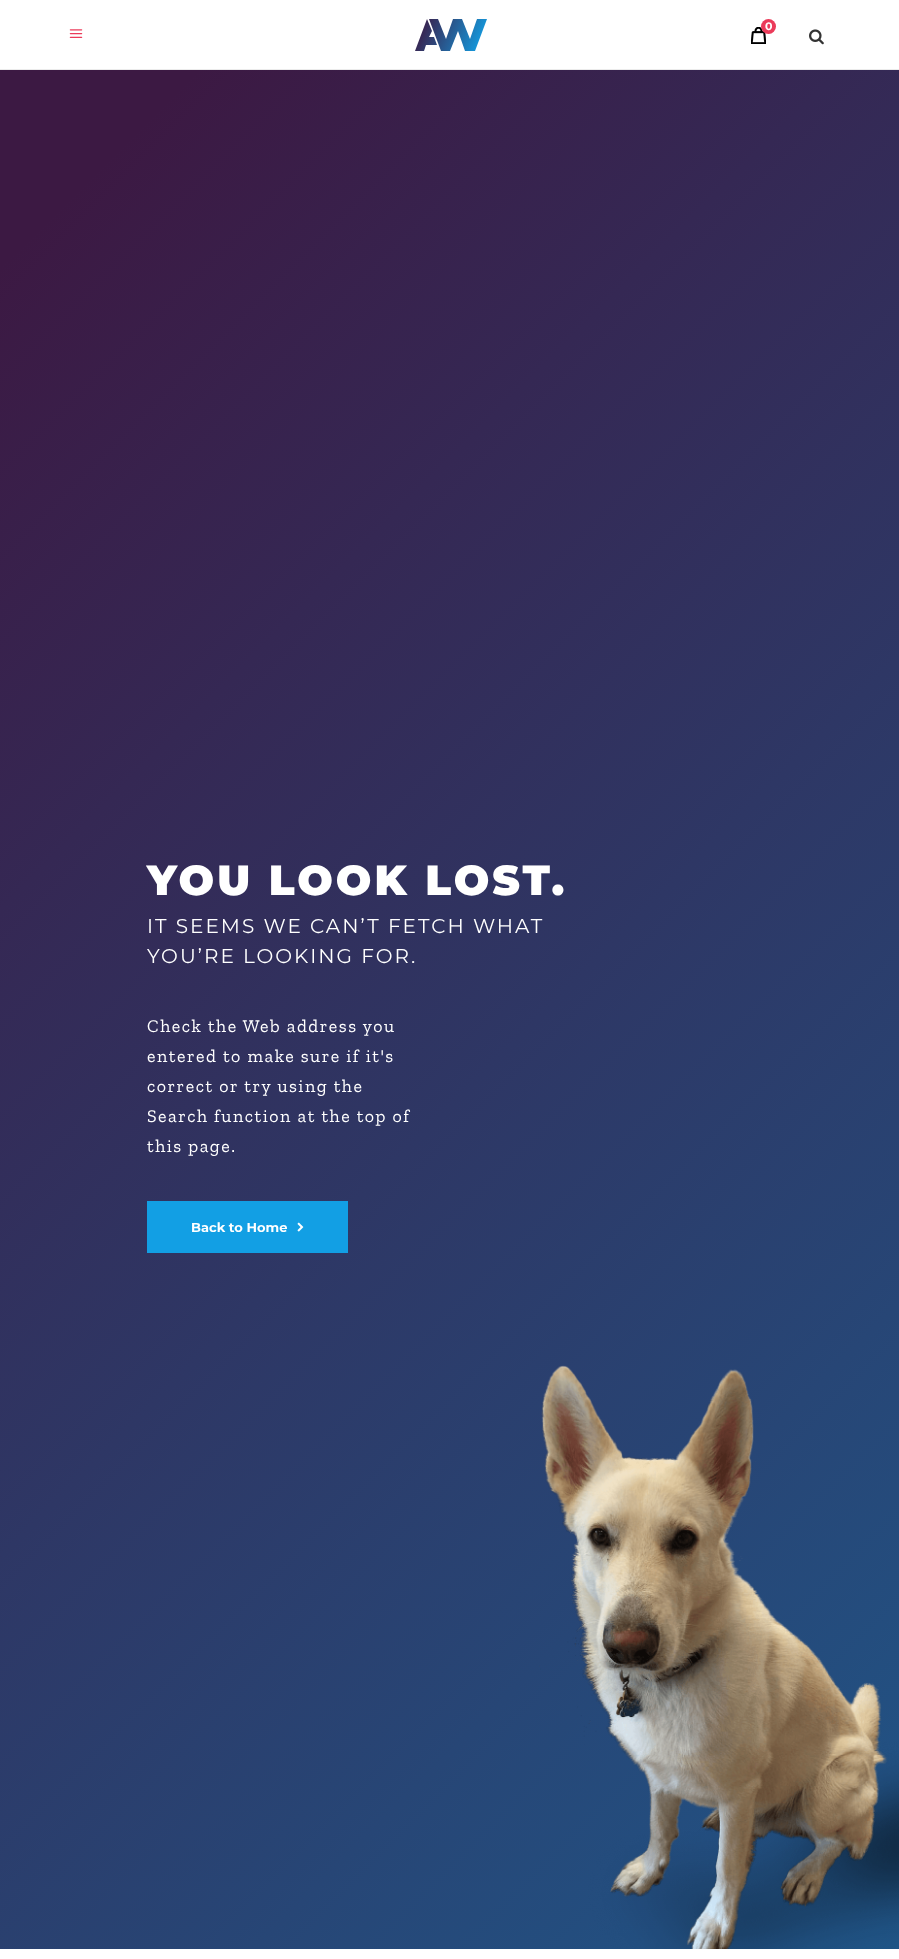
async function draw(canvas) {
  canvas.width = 899;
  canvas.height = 1959;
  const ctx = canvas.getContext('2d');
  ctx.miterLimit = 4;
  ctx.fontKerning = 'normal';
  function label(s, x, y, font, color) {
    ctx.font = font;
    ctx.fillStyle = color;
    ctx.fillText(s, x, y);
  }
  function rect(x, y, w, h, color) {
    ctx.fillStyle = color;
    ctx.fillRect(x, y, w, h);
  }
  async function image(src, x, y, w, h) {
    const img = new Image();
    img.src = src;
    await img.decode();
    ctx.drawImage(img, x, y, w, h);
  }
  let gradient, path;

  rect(0, 0, 899, 1959, '#fff');
  rect(0, 69, 899, 1, '#ebebeb');
  gradient = ctx.createLinearGradient(487, 38, 424, 10);
  gradient.addColorStop(0, '#129fe4');
  gradient.addColorStop(1, '#3c1943');
  ctx.fillStyle = gradient;
  path = new Path2D('M427 19L432 31L429 37H434L437 45H426L424 51H415ZM441 51L429 19H438L446 39L453 19H462L470 39L477 19H487L475 51H465L458 31L450 51Z');
  ctx.fill(path, 'evenodd');
  await image('assets/img1.png', 751, 27, 15, 17);
  ctx.fillStyle = '#eb3b5a';
  ctx.beginPath();
  ctx.arc(768.5, 26.5, 7.5, 0, 2 * Math.PI);
  ctx.fill();
  label('0', 765, 30, 'bold 11px Montserrat', '#fff');
  await image('assets/img2.png', 809, 29, 15, 16);
  await image('assets/img3.png', 69, 29, 14, 9);
  await image('assets/img4.png', 0, 70, 899, 1879);
  ctx.letterSpacing = '3px';
  label('YOU LOOK LOST.', 147, 895, '900 42px Montserrat', '#fff');
  ctx.letterSpacing = '2px';
  label('IT SEEMS WE CAN’T FETCH WHAT', 147, 933, '20px Montserrat', '#fff');
  label('YOU’RE LOOKING FOR.', 147, 963, '20px Montserrat', '#fff');
  ctx.letterSpacing = '1.5px';
  label('Check the Web address you', 147, 1032, '18px Zilla Slab', '#fff');
  label('entered to make sure if it\'s', 147, 1062, '18px Zilla Slab', '#fff');
  label('correct or try using the', 147, 1092, '18px Zilla Slab', '#fff');
  label('Search function at the top of', 147, 1122, '18px Zilla Slab', '#fff');
  label('this page.', 147, 1152, '18px Zilla Slab', '#fff');
  rect(147, 1201, 201, 52, '#129fe4');
  ctx.letterSpacing = '0px';
  label('Back to Home', 191, 1232, 'bold 13px Montserrat', '#fff');
  await image('assets/img5.png', 297, 1222, 7, 10);
}

draw(document.querySelector('canvas'));
